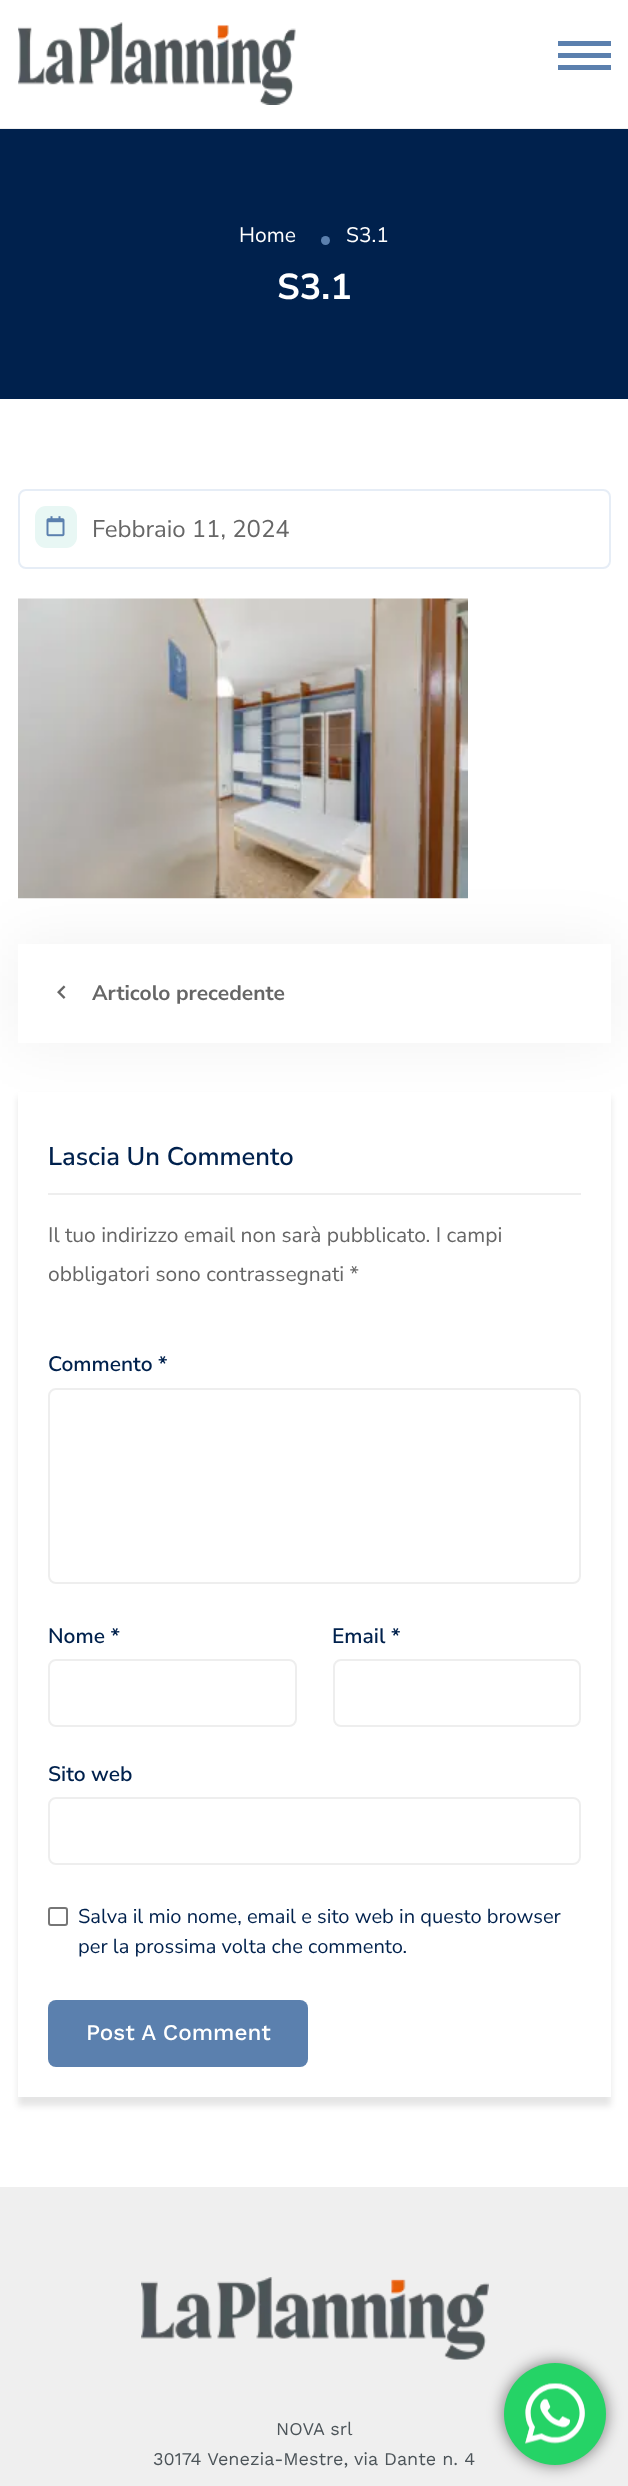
async function draw(canvas) {
  canvas.width = 628;
  canvas.height = 2486;
  const ctx = canvas.getContext('2d');
  ctx.miterLimit = 4;
  ctx.fontKerning = 'normal';
  function label(s, x, y, font, color) {
    ctx.font = font;
    ctx.fillStyle = color;
    ctx.fillText(s, x, y);
  }
  function rect(x, y, w, h, color) {
    ctx.fillStyle = color;
    ctx.fillRect(x, y, w, h);
  }
  function roundedRect(x, y, w, h, r, color) {
    ctx.fillStyle = color;
    ctx.beginPath();
    ctx.roundRect(x, y, w, h, r);
    ctx.fill();
  }
  async function image(src, x, y, w, h) {
    const img = new Image();
    img.src = src;
    await img.decode();
    ctx.drawImage(img, x, y, w, h);
  }

  rect(0, 0, 628, 2486, '#fff');
  rect(0, 128, 628, 1, '#efefef');
  await image('assets/img1.png', 18, 22, 278, 83);
  rect(558, 41, 53, 5, '#5b80ae');
  rect(558, 53, 53, 5, '#5b80ae');
  rect(558, 65, 53, 5, '#5b80ae');
  rect(0, 129, 628, 270, '#00214d');
  label('Home', 239, 242, '21px Nunito Sans', '#fff');
  ctx.fillStyle = '#5b80ae';
  ctx.beginPath();
  ctx.arc(325.5, 240.5, 4.5, 0, 2 * Math.PI);
  ctx.fill();
  label('S3.1', 346, 242, '21px Nunito Sans', '#fff');
  label('S3.1', 277, 299, 'bold 36px Nunito Sans', '#fff');
  ctx.beginPath();
  ctx.roundRect(19, 490, 591, 78, 7);
  ctx.strokeStyle = '#e6edf6';
  ctx.lineWidth = 2;
  ctx.stroke();
  roundedRect(35, 506, 42, 42, 11, '#e8f7f4');
  await image('assets/img2.png', 46, 516, 19, 21);
  label('Febbraio 11, 2024', 92, 537, '24px Nunito Sans', '#666');
  ctx.fillStyle = '#0000000d';
  ctx.filter = 'blur(30px)';
  ctx.beginPath();
  ctx.rect(14, 939, 601, 108);
  ctx.fill();
  ctx.filter = 'none';
  await image('assets/img3.png', 18, 598, 450, 301);
  rect(18, 944, 593, 99, '#fff');
  await image('assets/img4.png', 57, 985, 9, 14);
  label('Articolo precedente', 92, 1000, 'bold 21px Nunito Sans', '#666');
  ctx.fillStyle = '#0000001a';
  ctx.filter = 'blur(3px)';
  ctx.beginPath();
  ctx.rect(18, 1097, 593, 1009);
  ctx.fill();
  ctx.filter = 'none';
  rect(18, 1092, 593, 1005, '#fff');
  rect(48, 1193, 533, 2, '#eee');
  label('Lascia Un Commento', 48, 1165, '600 25.5px Nunito Sans', '#00214d');
  label('Il tuo indirizzo email non sarà pubblicato. I campi', 48, 1242, '21px Nunito Sans', '#666');
  label('obbligatori sono contrassegnati *', 48, 1281, '21px Nunito Sans', '#666');
  label('Commento *', 48, 1371, '600 21px Nunito Sans', '#00214d');
  ctx.beginPath();
  ctx.roundRect(49, 1389, 531, 194, 7);
  ctx.strokeStyle = '#eee';
  ctx.stroke();
  label('Nome *', 48, 1643, '600 21px Nunito Sans', '#00214d');
  ctx.beginPath();
  ctx.roundRect(49, 1660, 247, 66, 7);
  ctx.stroke();
  label('Email *', 332, 1643, '600 21px Nunito Sans', '#00214d');
  ctx.beginPath();
  ctx.roundRect(334, 1660, 246, 66, 7);
  ctx.stroke();
  label('Sito web', 48, 1781, '600 21px Nunito Sans', '#00214d');
  ctx.beginPath();
  ctx.roundRect(49, 1798, 531, 66, 7);
  ctx.stroke();
  ctx.beginPath();
  ctx.roundRect(49, 1908, 18, 17, 2);
  ctx.strokeStyle = '#767676';
  ctx.stroke();
  label('Salva il mio nome, email e sito web in questo browser', 78, 1923, '20.1px Nunito Sans', '#00214d');
  label('per la prossima volta che commento.', 78, 1953, '20.1px Nunito Sans', '#00214d');
  roundedRect(48, 2000, 260, 67, 8, '#5b80ae');
  label('Post A Comment', 86, 2040, '500 22.5px Work Sans', '#fff');
  rect(0, 2187, 628, 299, '#efefef');
  await image('assets/img5.png', 141, 2277, 348, 83);
  label('NOVA srl', 276, 2435, '18px Work Sans', '#4c5459');
  label('30174 Venezia-Mestre, via Dante n. 4', 153, 2465, '18px Work Sans', '#4c5459');
  ctx.fillStyle = '#00000080';
  ctx.filter = 'blur(8px)';
  ctx.beginPath();
  ctx.roundRect(504, 2363, 102, 102, 51);
  ctx.fill();
  ctx.filter = 'none';
  ctx.fillStyle = '#25d366';
  ctx.beginPath();
  ctx.arc(555, 2414, 51, 0, 2 * Math.PI);
  ctx.fill();
  await image('assets/img6.png', 525, 2383, 60, 61);
}

draw(document.querySelector('canvas'));
